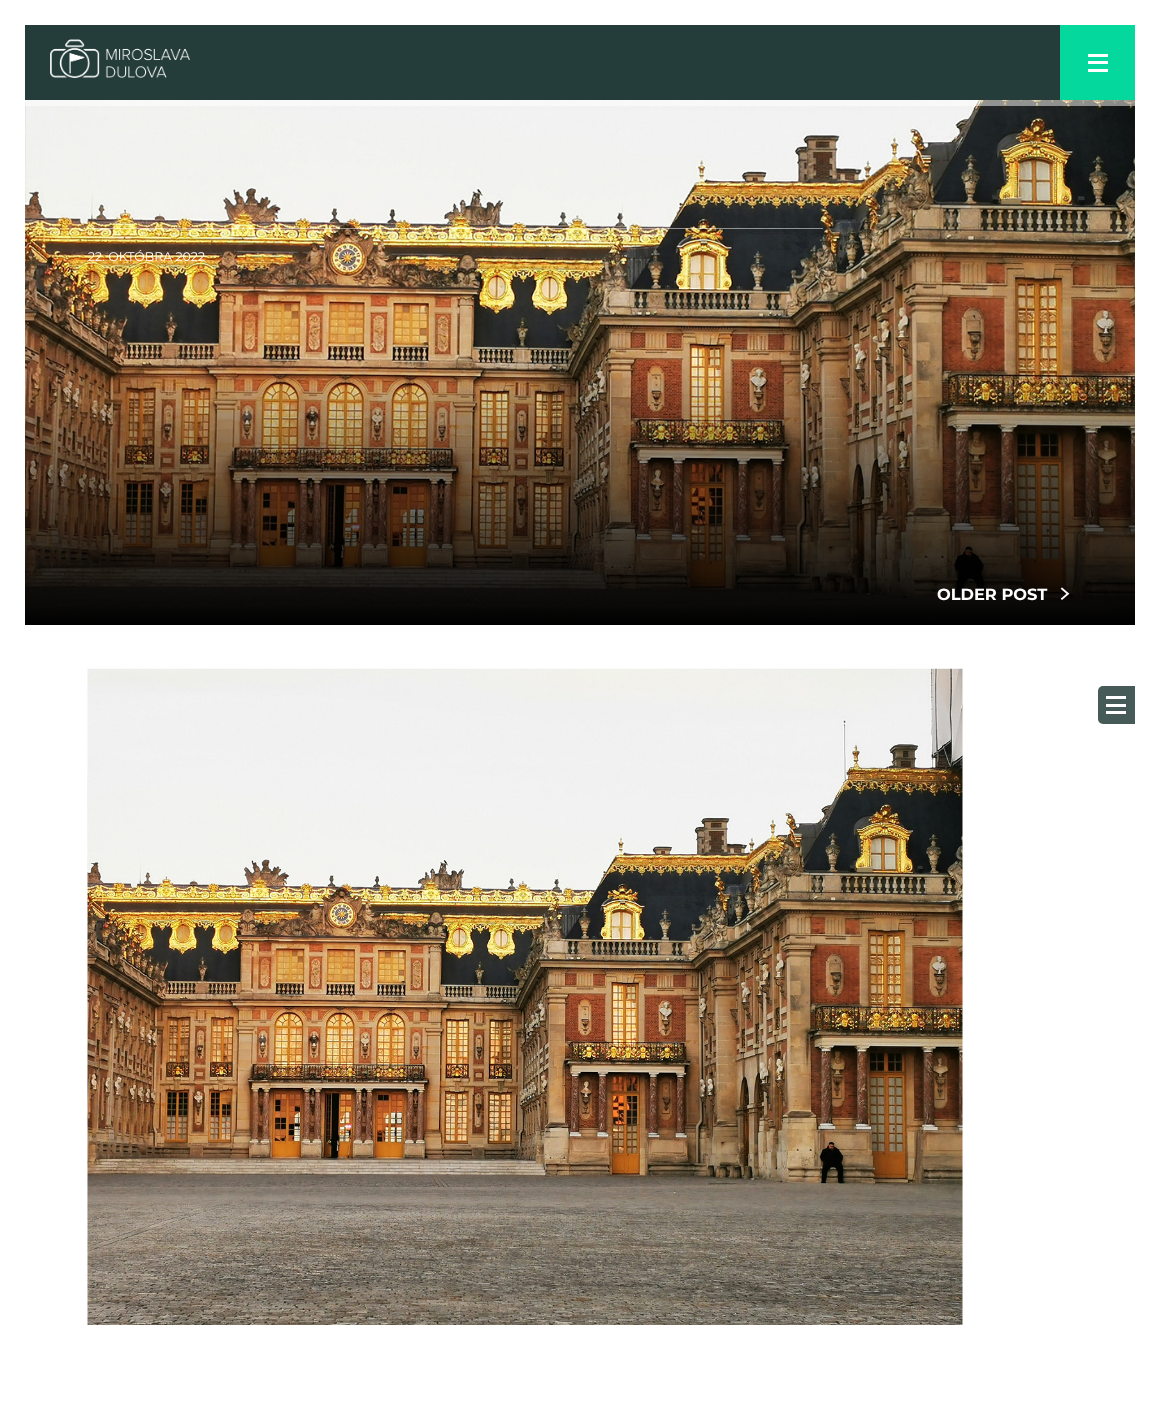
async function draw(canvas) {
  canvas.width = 1159;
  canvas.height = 1410;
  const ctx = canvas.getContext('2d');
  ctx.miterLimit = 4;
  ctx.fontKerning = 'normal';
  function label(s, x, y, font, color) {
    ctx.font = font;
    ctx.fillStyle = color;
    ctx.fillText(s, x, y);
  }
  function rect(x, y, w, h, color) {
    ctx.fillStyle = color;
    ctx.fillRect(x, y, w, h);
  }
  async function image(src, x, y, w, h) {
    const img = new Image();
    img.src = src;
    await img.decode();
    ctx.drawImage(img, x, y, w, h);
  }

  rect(0, 0, 1159, 1410, '#fff');
  rect(25, 25, 1035, 75, '#253d3a');
  await image('assets/img1.png', 50, 39, 140, 39);
  rect(1060, 25, 75, 75, '#04d89c');
  rect(1088, 54, 20, 3, '#fff');
  rect(1088, 61, 20, 3, '#fff');
  rect(1088, 69, 20, 3, '#fff');
  await image('assets/img2.png', 25, 100, 1110, 525);
  rect(25, 100, 1110, 6, '#ffffff80');
  rect(88, 228, 735, 1, '#ffffff80');
  label('22. OKTÓBRA 2022', 88, 261, '12.5px Montserrat', '#fff');
  label('OLDER POST', 937, 600, 'bold 16.25px Montserrat', '#fff');
  await image('assets/img3.png', 1060, 587, 10, 13);
  await image('assets/img4.png', 87, 668, 876, 657);
  ctx.fillStyle = '#465a58';
  ctx.beginPath();
  ctx.roundRect(1098, 686, 37, 38, [5, 0, 0, 5]);
  ctx.fill();
  rect(1106, 696, 20, 3, '#fff');
  rect(1106, 704, 20, 3, '#fff');
  rect(1106, 711, 20, 3, '#fff');
}

draw(document.querySelector('canvas'));
